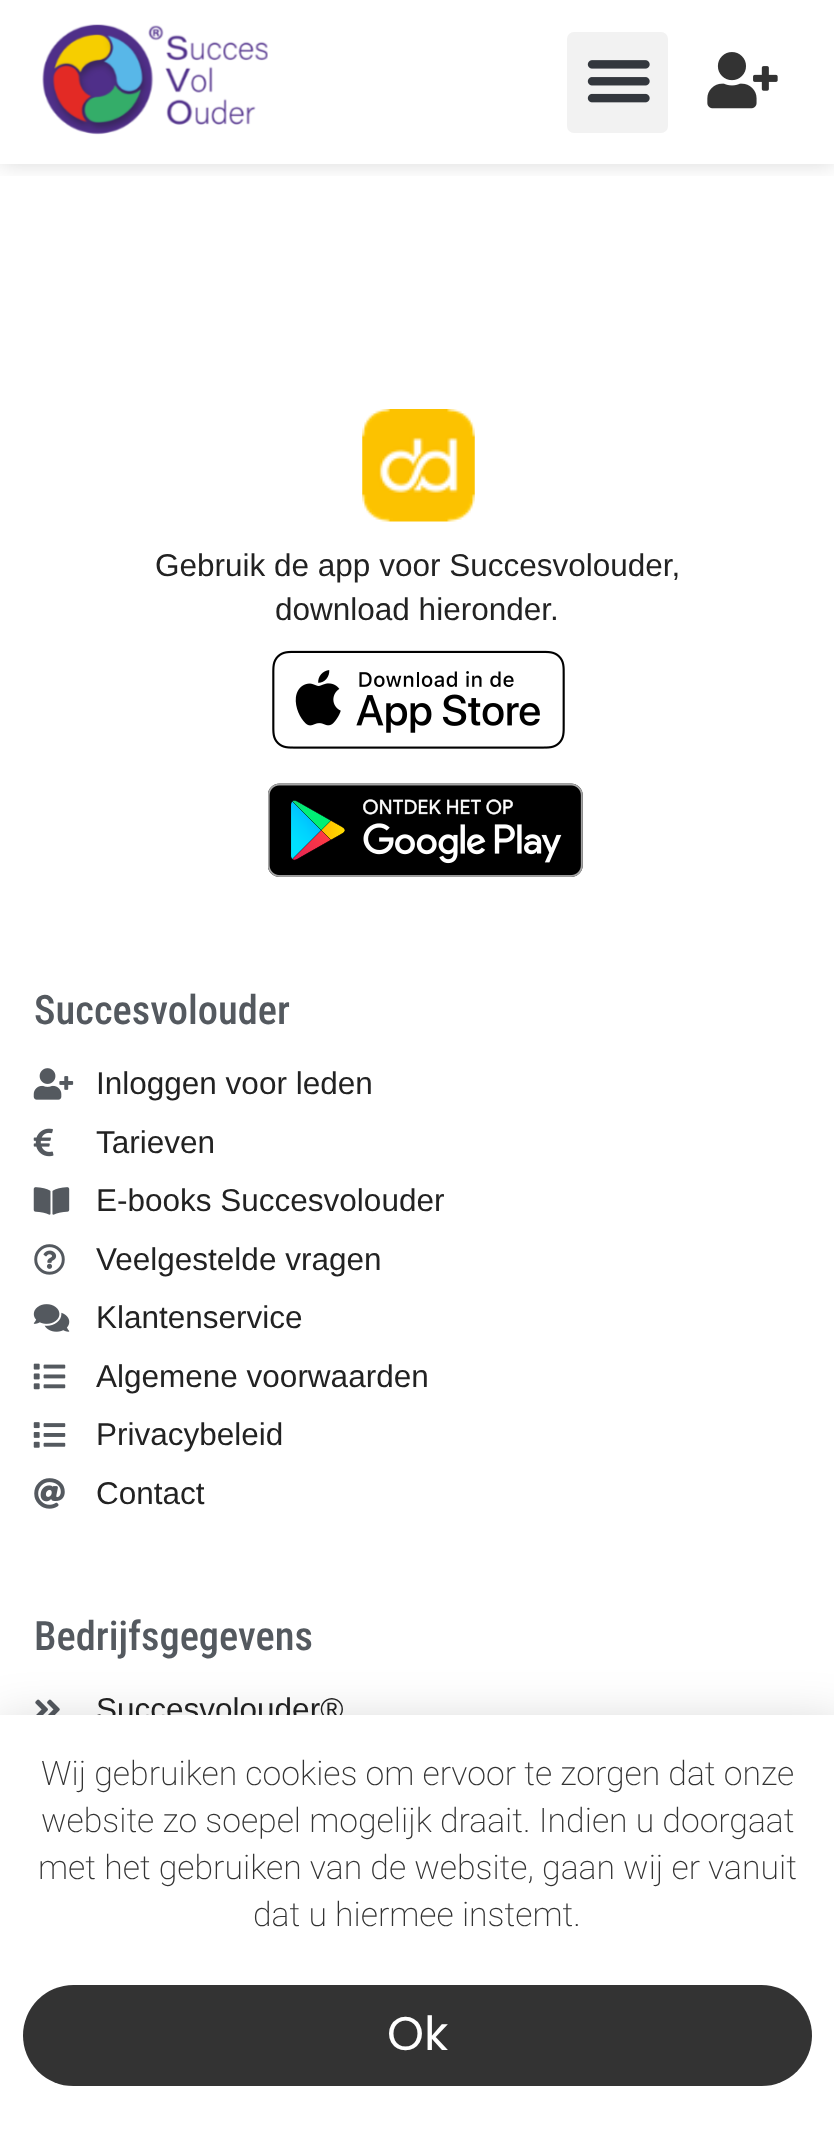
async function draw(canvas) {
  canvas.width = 834;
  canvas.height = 2129;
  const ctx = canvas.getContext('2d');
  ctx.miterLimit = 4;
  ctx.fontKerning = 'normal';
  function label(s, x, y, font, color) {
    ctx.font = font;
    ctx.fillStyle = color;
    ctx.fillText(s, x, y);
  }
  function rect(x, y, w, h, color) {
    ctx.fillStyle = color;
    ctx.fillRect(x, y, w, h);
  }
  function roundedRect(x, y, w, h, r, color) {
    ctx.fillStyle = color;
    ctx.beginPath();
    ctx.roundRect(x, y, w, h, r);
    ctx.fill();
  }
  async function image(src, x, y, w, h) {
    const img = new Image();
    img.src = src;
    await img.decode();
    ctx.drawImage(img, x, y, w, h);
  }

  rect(0, 0, 834, 2129, '#fff');
  ctx.save();
  ctx.beginPath();
  ctx.rect(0, 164, 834, 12);
  ctx.clip();
  ctx.fillStyle = '#00000026';
  ctx.filter = 'blur(11px)';
  ctx.beginPath();
  ctx.rect(0, 0, 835, 164);
  ctx.fill();
  ctx.filter = 'none';
  ctx.restore();
  await image('assets/img1.png', 42, 24, 226, 111);
  roundedRect(567, 32, 101, 101, 7, '#f2f2f2');
  await image('assets/img2.png', 587, 60, 63, 43);
  await image('assets/img3.png', 707, 52, 71, 57);
  await image('assets/img4.png', 362, 409, 113, 113);
  label('Gebruik de app voor Succesvolouder,', 155, 576, '31.5px Liberation Sans', '#222');
  label('download hieronder.', 275, 620, '31.5px Liberation Sans', '#222');
  await image('assets/img5.png', 272, 650, 293, 99);
  await image('assets/img6.png', 268, 783, 315, 94);
  label('Succesvolouder', 34, 1024, '500 40.5px Roboto Condensed', '#54595f');
  await image('assets/img7.png', 33, 1068, 41, 32);
  label('Inloggen voor leden', 96, 1094, '31.5px Liberation Sans', '#222');
  await image('assets/img8.png', 33, 1128, 21, 29);
  label('Tarieven', 96, 1153, '31.5px Liberation Sans', '#222');
  await image('assets/img9.png', 33, 1187, 37, 28);
  label('E-books Succesvolouder', 96, 1211, '31.5px Liberation Sans', '#222');
  await image('assets/img10.png', 34, 1244, 31, 31);
  label('Veelgestelde vragen', 96, 1270, '31.5px Liberation Sans', '#222');
  await image('assets/img11.png', 33, 1304, 37, 28);
  label('Klantenservice', 96, 1328, '31.5px Liberation Sans', '#222');
  await image('assets/img12.png', 33, 1363, 33, 27);
  label('Algemene voorwaarden', 96, 1387, '31.5px Liberation Sans', '#222');
  await image('assets/img13.png', 33, 1422, 33, 26);
  label('Privacybeleid', 96, 1445, '31.5px Liberation Sans', '#222');
  await image('assets/img14.png', 34, 1478, 31, 31);
  label('Contact', 96, 1504, '31.5px Liberation Sans', '#222');
  label('Bedrijfsgegevens', 34, 1650, '500 40.5px Roboto Condensed', '#54595f');
  await image('assets/img15.png', 35, 1699, 25, 16);
  label('Succesvolouder®', 96, 1720, '31.5px Liberation Sans', '#222');
  ctx.fillStyle = '#00000033';
  ctx.filter = 'blur(26px)';
  ctx.beginPath();
  ctx.rect(-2, 1726, 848, 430);
  ctx.fill();
  ctx.filter = 'none';
  rect(0, 1715, 834, 414, '#fff');
  label('Wij gebruiken cookies om ervoor te zorgen dat onze', 41, 1785, '200 33.75px Roboto', '#333');
  label('website zo soepel mogelijk draait. Indien u doorgaat', 41, 1832, '200 33.75px Roboto', '#333');
  label('met het gebruiken van de website, gaan wij er vanuit', 38, 1879, '200 33.75px Roboto', '#333');
  label('dat u hiermee instemt.', 253, 1926, '200 33.75px Roboto', '#333');
  roundedRect(23, 1985, 789, 101, 50.5, '#333');
  label('Ok', 387, 2050, '47px Poppins', '#fff');
}

draw(document.querySelector('canvas'));
